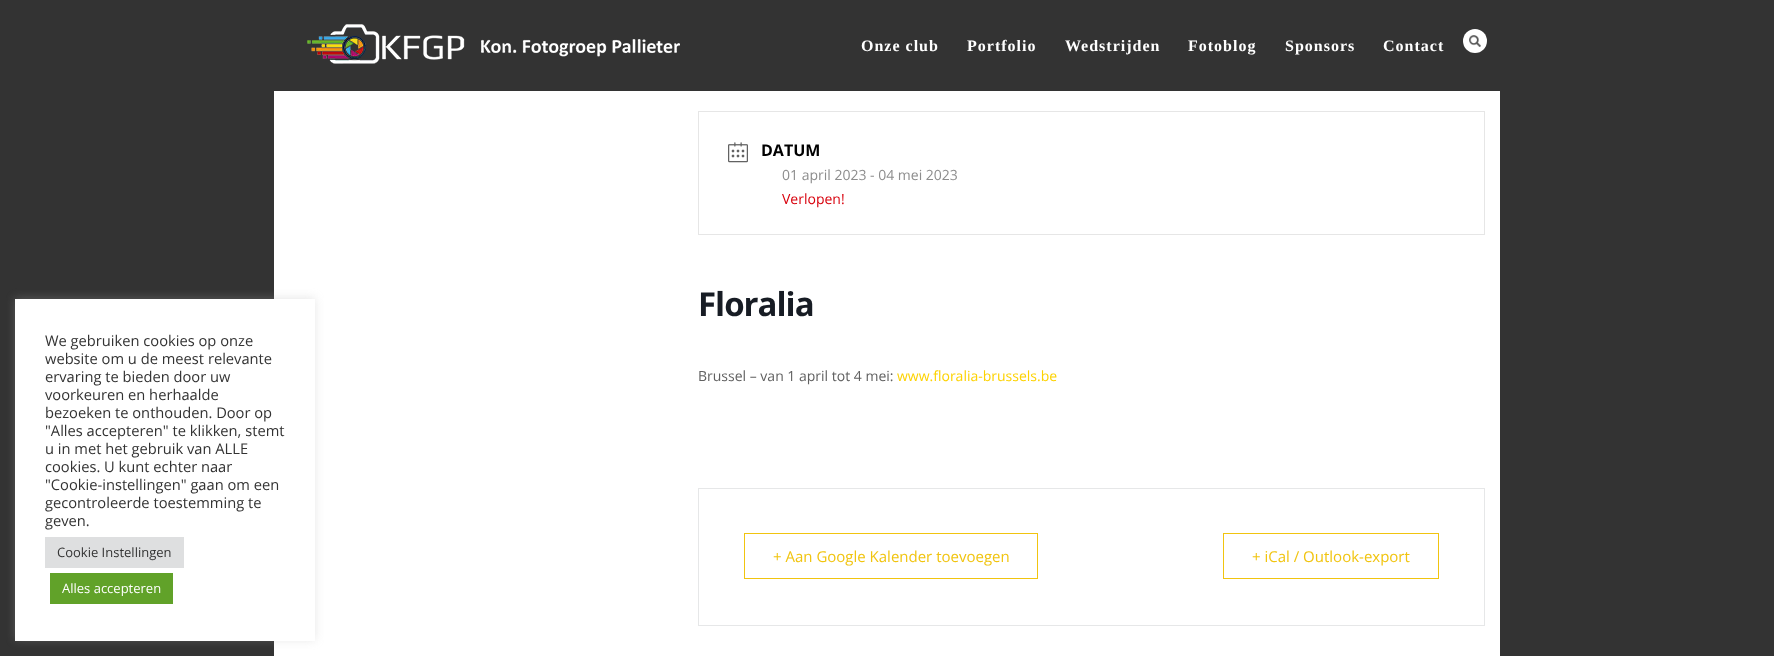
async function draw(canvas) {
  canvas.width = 1774;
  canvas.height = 656;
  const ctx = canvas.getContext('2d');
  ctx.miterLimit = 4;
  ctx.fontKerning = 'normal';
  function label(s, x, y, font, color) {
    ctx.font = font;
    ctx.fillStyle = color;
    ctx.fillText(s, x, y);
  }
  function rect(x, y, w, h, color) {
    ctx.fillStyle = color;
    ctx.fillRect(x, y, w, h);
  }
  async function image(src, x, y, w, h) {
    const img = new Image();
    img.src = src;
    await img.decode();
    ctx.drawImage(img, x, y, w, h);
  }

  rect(0, 0, 1774, 656, '#333');
  rect(274, 91, 1226, 565, '#fff');
  ctx.fillStyle = '#acabab4d';
  ctx.filter = 'blur(5px)';
  ctx.beginPath();
  ctx.rect(15, 298, 300, 342);
  ctx.fill();
  ctx.filter = 'none';
  rect(15, 299, 300, 342, '#fff');
  label('We gebruiken cookies op onze', 45, 346, '14.7px Open Sans', '#333');
  label('website om u de meest relevante', 45, 364, '14.7px Open Sans', '#333');
  label('ervaring te bieden door uw', 45, 382, '14.7px Open Sans', '#333');
  label('voorkeuren en herhaalde', 45, 400, '14.7px Open Sans', '#333');
  label('bezoeken te onthouden. Door op', 45, 418, '14.7px Open Sans', '#333');
  label('"Alles accepteren" te klikken, stemt', 45, 436, '14.7px Open Sans', '#333');
  label('u in met het gebruik van ALLE', 45, 454, '14.7px Open Sans', '#333');
  label('cookies. U kunt echter naar', 45, 472, '14.7px Open Sans', '#333');
  label('"Cookie-instellingen" gaan om een', 45, 490, '14.7px Open Sans', '#333');
  label('gecontroleerde toestemming te', 45, 508, '14.7px Open Sans', '#333');
  label('geven.', 45, 526, '14.7px Open Sans', '#333');
  rect(45, 537, 139, 31, '#dedfe0');
  label('Cookie Instellingen', 57, 557, '13px Open Sans', '#333');
  rect(50, 573, 123, 31, '#61a229');
  label('Alles accepteren', 62, 593, '13px Open Sans', '#fff');
  await image('assets/img1.png', 307, 24, 373, 40);
  ctx.letterSpacing = '1px';
  label('Onze club', 861, 51, 'bold 16px Liberation Serif', '#fff');
  label('Portfolio', 967, 51, 'bold 16px Liberation Serif', '#fff');
  label('Wedstrijden', 1065, 51, 'bold 16px Liberation Serif', '#fff');
  label('Fotoblog', 1188, 51, 'bold 16px Liberation Serif', '#fff');
  label('Sponsors', 1285, 51, 'bold 16px Liberation Serif', '#fff');
  label('Contact', 1383, 51, 'bold 16px Liberation Serif', '#fff');
  ctx.beginPath();
  ctx.arc(1475, 41, 12, 0, 2 * Math.PI);
  ctx.fill();
  await image('assets/img2.png', 1469, 35, 12, 12);
  ctx.strokeStyle = '#e6e6e6';
  ctx.strokeRect(698.5, 111.5, 786, 123);
  await image('assets/img3.png', 728, 142, 20, 21);
  ctx.letterSpacing = '0px';
  label('DATUM', 761, 156, 'bold 16px Open Sans', '#000');
  label('01 april 2023 - 04 mei 2023', 782, 180, '14px Open Sans', '#8d8d8d');
  label('Verlopen!', 782, 204, '14px Open Sans', '#d8000c');
  ctx.letterSpacing = '-1px';
  label('Floralia', 698, 316, 'bold 33px Open Sans', '#171c24');
  ctx.letterSpacing = '0px';
  label('Brussel – van 1 april tot 4 mei:', 698, 381, '14px Open Sans', '#616161');
  label('www.floralia-brussels.be', 897, 381, '14px Open Sans', '#fdd200');
  ctx.strokeStyle = '#e6e7e8';
  ctx.strokeRect(698.5, 488.5, 786, 137);
  ctx.strokeStyle = '#f1c40f';
  ctx.strokeRect(744.5, 533.5, 293, 45);
  label('+ Aan Google Kalender toevoegen', 773, 562, '15px Open Sans', '#f1c40f');
  ctx.strokeRect(1223.5, 533.5, 215, 45);
  label('+ iCal / Outlook-export', 1252, 562, '15px Open Sans', '#f1c40f');
}

draw(document.querySelector('canvas'));
